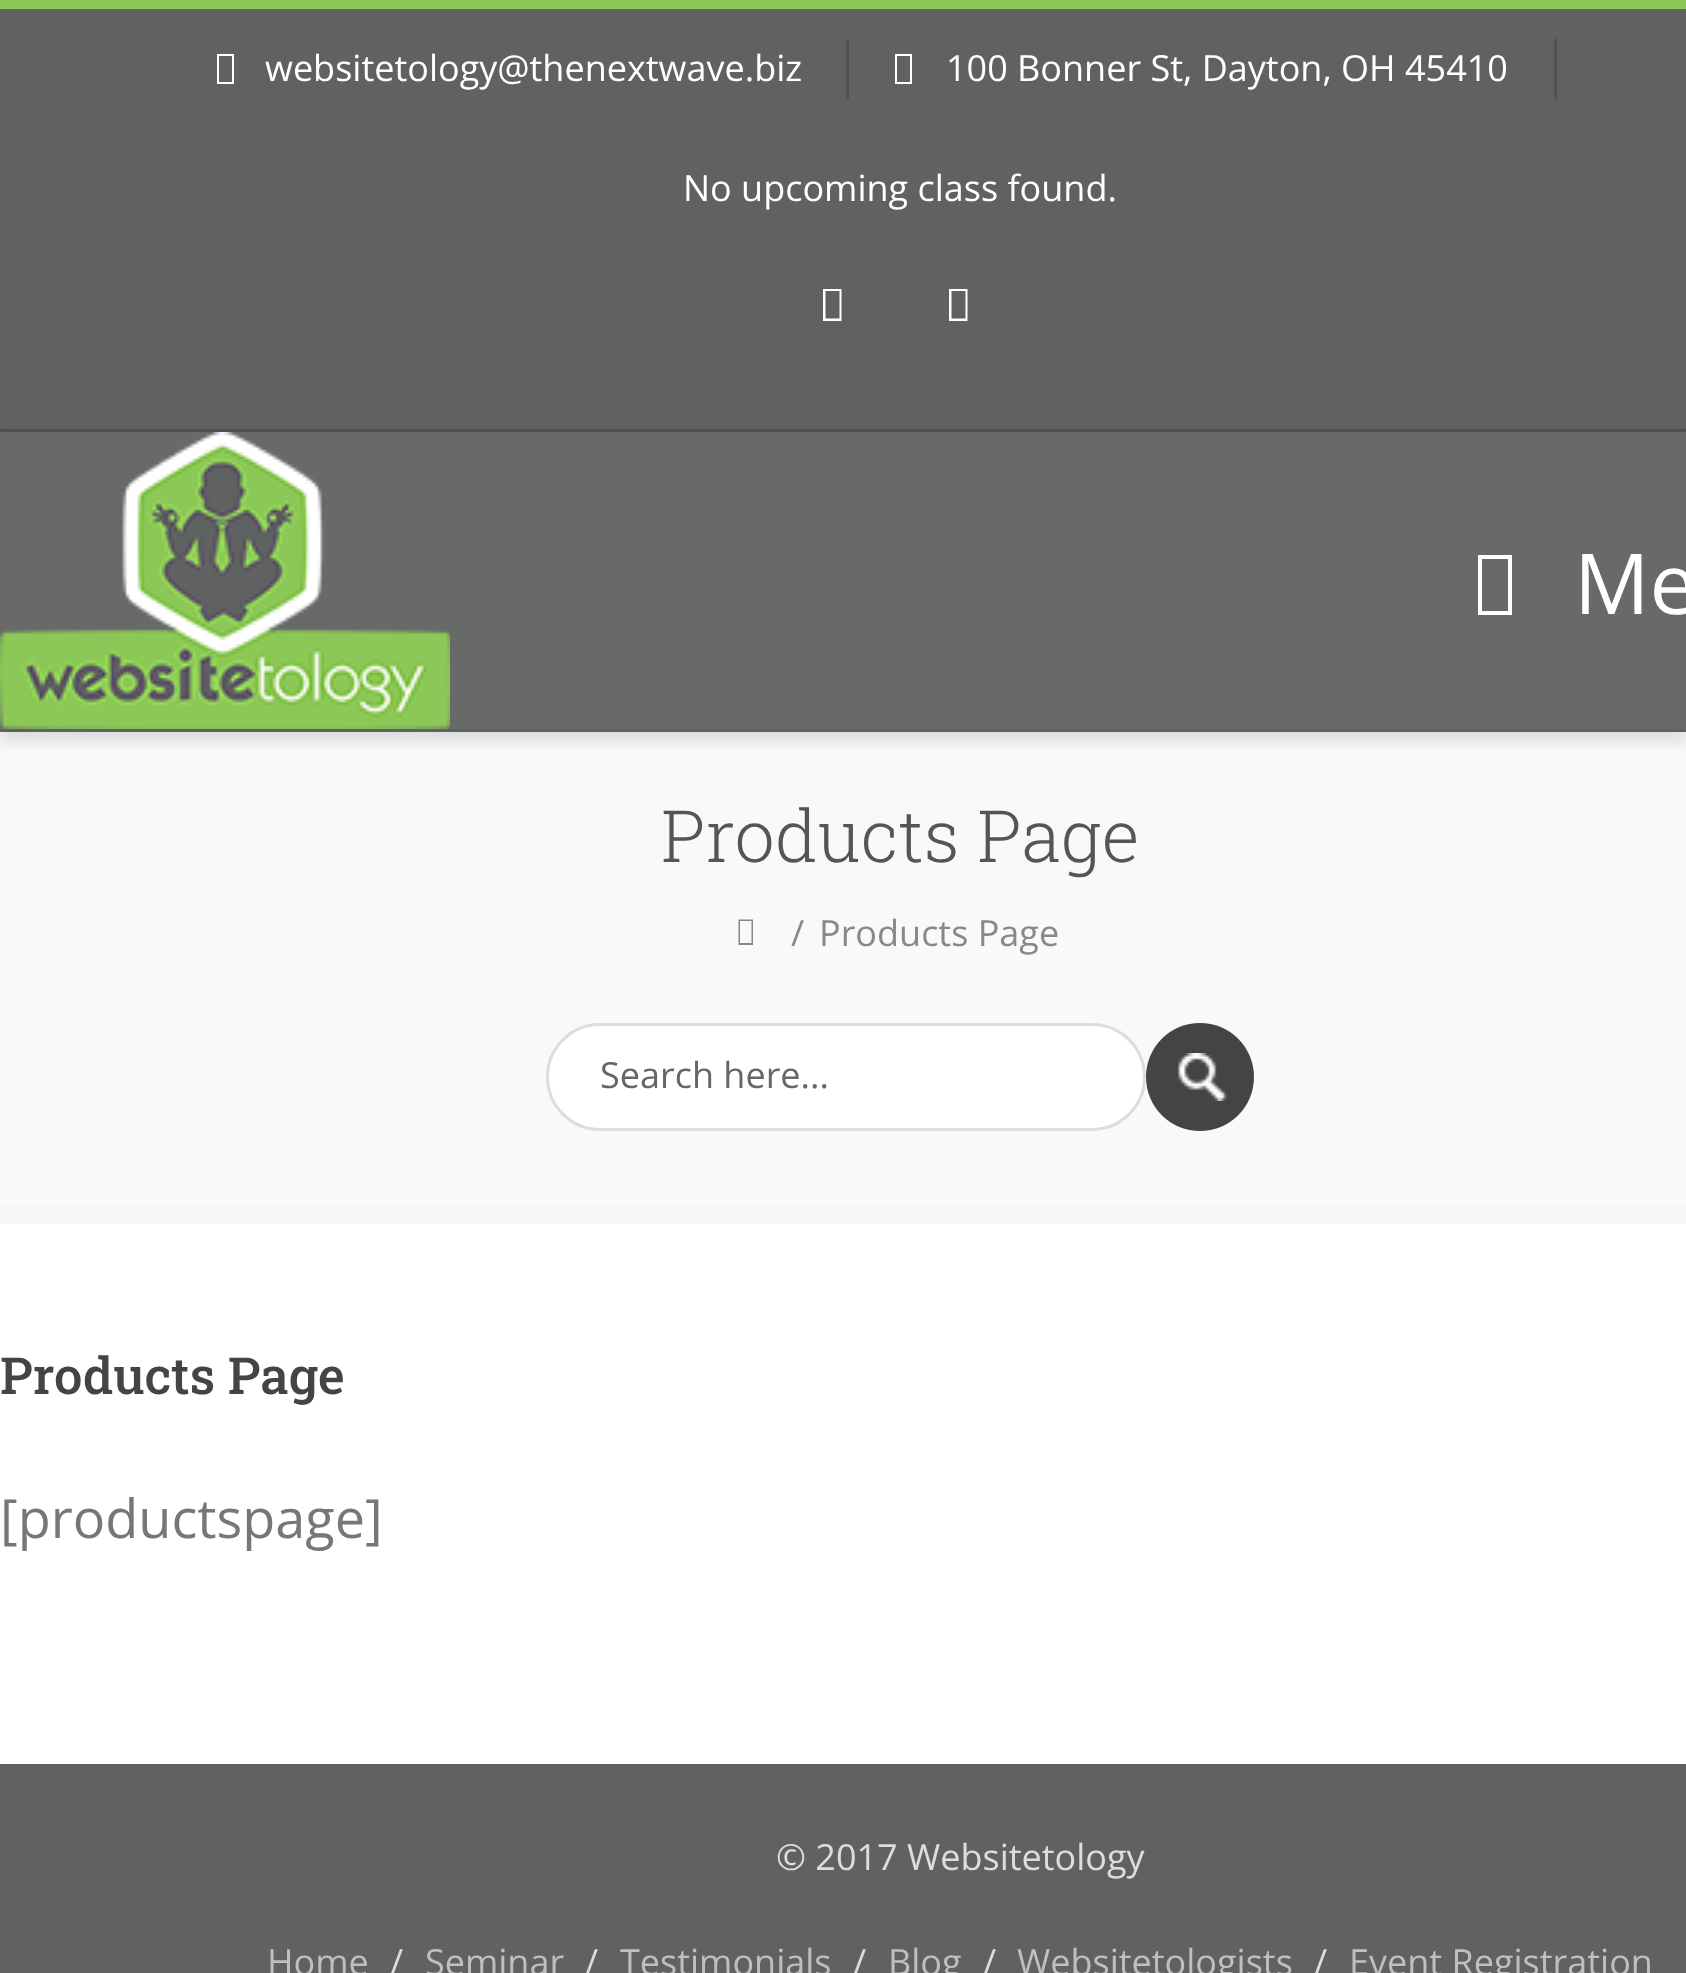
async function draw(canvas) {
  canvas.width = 1686;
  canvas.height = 1973;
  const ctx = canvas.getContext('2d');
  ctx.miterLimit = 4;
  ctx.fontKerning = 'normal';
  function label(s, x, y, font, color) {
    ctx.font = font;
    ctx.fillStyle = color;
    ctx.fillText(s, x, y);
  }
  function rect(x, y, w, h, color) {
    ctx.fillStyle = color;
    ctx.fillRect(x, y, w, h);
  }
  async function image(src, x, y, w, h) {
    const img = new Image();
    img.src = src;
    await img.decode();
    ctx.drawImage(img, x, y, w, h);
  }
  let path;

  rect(0, 0, 1686, 1973, '#fff');
  rect(0, 0, 1686, 9, '#8cc857');
  rect(0, 9, 1686, 420, '#606161');
  rect(0, 429, 1686, 3, '#505151');
  ctx.fillStyle = '#fff';
  path = new Path2D('M217 84V54H234V84ZM219 82H232V56H219Z');
  ctx.fill(path);
  rect(846, 39, 3, 60, '#505151');
  label('websitetology@thenextwave.biz', 265, 81, '36px Open Sans', '#fff');
  path = new Path2D('M895 84V54H912V84ZM897 82H910V56H897Z');
  ctx.fill(path);
  rect(1554, 39, 3, 60, '#505151');
  label('100 Bonner St, Dayton, OH 45410', 946, 81, '36px Open Sans', '#fff');
  label('No upcoming class found.', 683, 201, '36px Open Sans', '#fff');
  path = new Path2D('M823 321V289H841.5V321ZM825.5 318.5H839.5V291H825.5Z');
  ctx.fill(path);
  path = new Path2D('M949 321V289H967.5V321ZM951.5 318.5H965.5V291H951.5Z');
  ctx.fill(path);
  rect(0, 732, 1686, 492, '#f6f6f6');
  rect(0, 747, 1686, 459, '#f9f9f9');
  ctx.fillStyle = '#0000001a';
  ctx.filter = 'blur(7.5px)';
  ctx.beginPath();
  ctx.rect(0, 441, 1686, 300);
  ctx.fill();
  ctx.filter = 'none';
  rect(0, 432, 1686, 297, '#686969');
  rect(0, 729, 1686, 3, '#606161');
  await image('assets/img1.png', 0, 432, 450, 297);
  ctx.fillStyle = '#fff';
  path = new Path2D('M1478 615V555H1512V615ZM1482 611H1508V559H1482Z');
  ctx.fill(path);
  label('Me', 1574, 614, '84px Open Sans', '#fff');
  label('Products Page', 661, 862, '300 72px Roboto Slab', '#555');
  ctx.fillStyle = '#888';
  path = new Path2D('M738.5 945V919.5H753V945ZM740 943H751.5V921H740Z');
  ctx.fill(path);
  label('/', 791, 946, '36px Open Sans', '#888');
  label('Products Page', 819, 946, '36px Open Sans', '#888');
  ctx.fillStyle = '#fff';
  ctx.beginPath();
  ctx.roundRect(547.5, 1024.5, 597, 105, 52.5);
  ctx.fill();
  ctx.strokeStyle = '#ddd';
  ctx.lineWidth = 3;
  ctx.stroke();
  label('Search here...', 600, 1088, '36px Open Sans', '#666');
  ctx.fillStyle = '#444';
  ctx.beginPath();
  ctx.arc(1200, 1077, 54, 0, 2 * Math.PI);
  ctx.fill();
  await image('assets/img2.png', 1176, 1053, 51, 48);
  label('Products Page', 0, 1394, '500 51px Roboto Slab', '#444');
  label('[productspage]', 0, 1538, '54px Open Sans', '#777');
  rect(0, 1764, 1686, 209, '#606161');
  label('© 2017 Websitetology', 776, 1870, '36px Open Sans', '#ddd');
  label('Home', 267, 1975, '36px Open Sans', '#bfbfbf');
  label('/', 390, 1975, '36px Open Sans', '#ddd');
  label('Seminar', 425, 1975, '36px Open Sans', '#bfbfbf');
  label('/', 585, 1975, '36px Open Sans', '#ddd');
  label('Testimonials', 620, 1975, '36px Open Sans', '#bfbfbf');
  label('/', 853, 1975, '36px Open Sans', '#ddd');
  label('Blog', 888, 1975, '36px Open Sans', '#bfbfbf');
  label('/', 983, 1975, '36px Open Sans', '#ddd');
  label('Websitetologists', 1017, 1975, '36px Open Sans', '#bfbfbf');
  label('/', 1314, 1975, '36px Open Sans', '#ddd');
  label('Event Registration', 1349, 1975, '36px Open Sans', '#bfbfbf');
}

draw(document.querySelector('canvas'));
